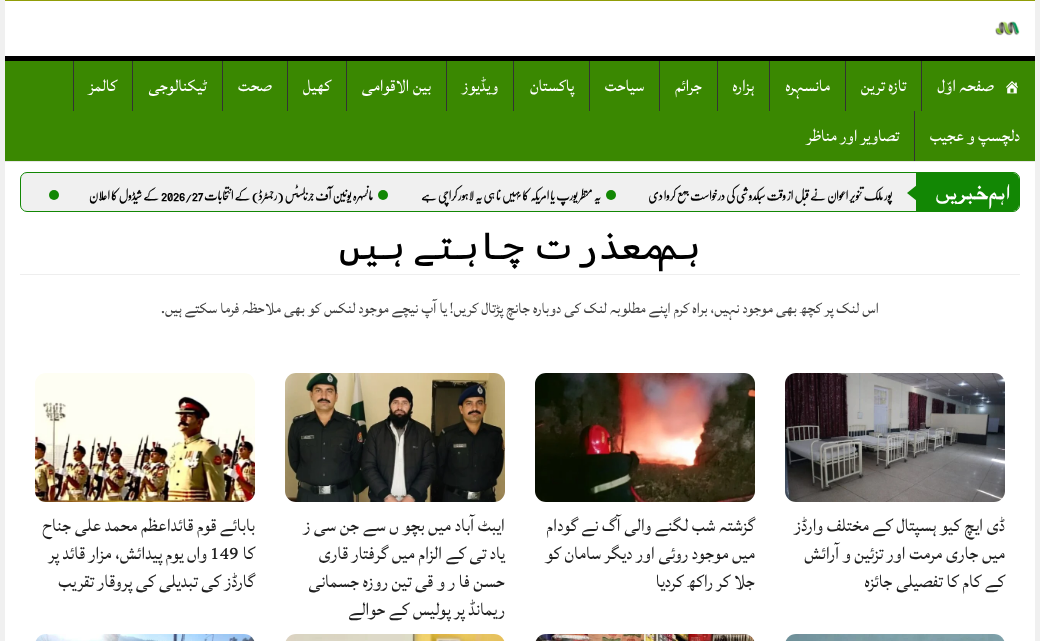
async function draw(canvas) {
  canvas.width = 1040;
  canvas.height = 641;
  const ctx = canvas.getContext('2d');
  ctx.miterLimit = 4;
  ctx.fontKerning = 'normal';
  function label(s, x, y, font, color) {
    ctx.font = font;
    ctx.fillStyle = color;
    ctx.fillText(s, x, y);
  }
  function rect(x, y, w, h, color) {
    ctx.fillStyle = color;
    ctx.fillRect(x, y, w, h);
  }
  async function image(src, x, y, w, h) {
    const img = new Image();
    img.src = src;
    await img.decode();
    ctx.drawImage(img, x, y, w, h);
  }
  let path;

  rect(0, 0, 1040, 641, '#fff');
  rect(1035, 0, 5, 641, '#f0f0f0');
  rect(0, 0, 5, 641, '#f0f0f0');
  rect(5, 0, 1030, 1, '#919d08');
  await image('assets/img1.png', 995, 21, 25, 15);
  rect(5, 61, 1030, 100, '#3a8801');
  rect(5, 56, 1030, 5, '#000');
  rect(5, 161, 1030, 1, '#e7e7e7');
  rect(921, 61, 1, 50, '#333');
  await image('assets/img2.png', 1006, 81, 12, 13);
  ctx.direction = 'rtl';
  label('صفحہ اوّل', 994, 91, '22px Lateef', '#fff');
  rect(845, 61, 1, 50, '#333');
  label('تازہ ترین', 906, 91, '22px Lateef', '#fff');
  rect(769, 61, 1, 50, '#333');
  label('مانسہرہ', 830, 91, '22px Lateef', '#fff');
  rect(717, 61, 1, 50, '#333');
  label('ہزارہ', 754, 91, '22px Lateef', '#fff');
  rect(659, 61, 1, 50, '#333');
  label('جرائم', 702, 91, '22px Lateef', '#fff');
  rect(589, 61, 1, 50, '#333');
  label('سیاحت', 644, 91, '22px Lateef', '#fff');
  rect(513, 61, 1, 50, '#333');
  label('پاکستان', 574, 91, '22px Lateef', '#fff');
  rect(446, 61, 1, 50, '#333');
  label('ویڈیوز', 498, 91, '22px Lateef', '#fff');
  rect(346, 61, 1, 50, '#333');
  label('بین الاقوامی', 431, 91, '22px Lateef', '#fff');
  rect(287, 61, 1, 50, '#333');
  label('کھیل', 331, 91, '22px Lateef', '#fff');
  rect(222, 61, 1, 50, '#333');
  label('صحت', 272, 91, '22px Lateef', '#fff');
  rect(132, 61, 1, 50, '#333');
  label('ٹیکنالوجی', 207, 91, '22px Lateef', '#fff');
  rect(73, 61, 1, 50, '#333');
  label('کالمز', 117, 91, '22px Lateef', '#fff');
  rect(914, 111, 1, 50, '#333');
  label('دلچسپ و عجیب', 1020, 141, '22px Lateef', '#fff');
  label('تصاویر اور مناظر', 899, 141, '22px Lateef', '#fff');
  ctx.fillStyle = '#f0f0f0';
  ctx.beginPath();
  ctx.roundRect(20.5, 172.5, 999, 39, 6.5);
  ctx.fill();
  ctx.strokeStyle = '#128704';
  ctx.stroke();
  ctx.fillStyle = '#128704';
  ctx.beginPath();
  ctx.roundRect(916, 173, 103, 38, [0, 6, 6, 0]);
  ctx.fill();
  label('اہم خبریں', 1009, 199, '24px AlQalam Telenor', '#fff');
  ctx.fillStyle = '#128704';
  path = new Path2D('M917 185V201L907 193Z');
  ctx.fill(path);
  ctx.save();
  ctx.beginPath();
  ctx.rect(0, 178, 894, 40);
  ctx.clip();
  label('ہری پور ملک تنویر اعوان نے قبل از وقت سبکدوشی کی درخواست جمع کروا دی', 911, 200, 'bold 12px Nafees', '#000');
  ctx.restore();
  ctx.beginPath();
  ctx.arc(611, 195, 5, 0, 2 * Math.PI);
  ctx.fill();
  label('یہ منظر یورپ یا امریکہ کا نہیں نا ہی یہ لاہور کراچی ہے', 601, 200, 'bold 12px Nafees', '#000');
  ctx.fillStyle = '#128704';
  ctx.beginPath();
  ctx.arc(383, 195, 5, 0, 2 * Math.PI);
  ctx.fill();
  label('مانسہرہ یونین آف جرنلسٹس (رجسٹرڈ) کے انتخابات', 373, 200, 'bold 12px Nafees', '#000');
  ctx.direction = 'ltr';
  label('2026/27', 161, 200, 'bold 12px Nafees', '#000');
  ctx.direction = 'rtl';
  label('کے شیڈول کا اعلان', 159, 200, 'bold 12px Nafees', '#000');
  ctx.fillStyle = '#128704';
  ctx.beginPath();
  ctx.arc(54, 195, 5, 0, 2 * Math.PI);
  ctx.fill();
  rect(20, 274, 1000, 1, '#eee');
  label('ہم', 701, 259, '38px Cascadia Code', '#000');
  ctx.wordSpacing = '-15px';
  label('معذرت چاہتے ہیں', 665, 259, '38px Cascadia Code', '#000');
  ctx.wordSpacing = '0px';
  label('اس لنک پر کچھ بھی موجود نہیں، براہ کرم اپنے مطلوبہ لنک کی دوبارہ جانچ پڑتال کریں!', 879, 313, '20px Lateef', '#404040');
  label('یا آپ نیچے موجود لنکس کو بھی ملاحظہ فرما سکتے ہیں.', 447, 313, '20px Lateef', '#404040');
  await image('assets/img3.png', 785, 373, 220, 129);
  label('ڈی ایچ کیو ہسپتال کے مختلف وارڈز', 1005, 531, '24px Lateef', '#222');
  label('میں جاری مرمت اور تزئین و آرائش', 1005, 559, '24px Lateef', '#222');
  label('کے کام کا تفصیلی جائزہ', 1005, 587, '24px Lateef', '#222');
  await image('assets/img4.png', 535, 373, 220, 129);
  label('گزشتہ شب لگنے والی آگ نے گودام', 755, 531, '24px Lateef', '#222');
  label('میں موجود روئی اور دیگر سامان کو', 755, 559, '24px Lateef', '#222');
  label('جلا کر', 755, 587, '24px Lateef', '#222');
  label('راکھ کردیا', 713, 587, '24px Lateef', '#222');
  await image('assets/img5.png', 285, 373, 220, 129);
  label('ایبٹ آباد میں بچو ں سے جن سی ز', 505, 531, '24px Lateef', '#222');
  label('یاد تی کے الزام میں گرفتار قاری', 505, 559, '24px Lateef', '#222');
  label('حسن فا ر و قی تین روزہ جسمانی', 505, 587, '24px Lateef', '#222');
  label('ریمانڈ پر پولیس کے حوالے', 505, 615, '24px Lateef', '#222');
  await image('assets/img6.png', 35, 373, 220, 129);
  label('بابائے قوم قائداعظم محمد علی جناح', 255, 531, '24px Lateef', '#222');
  label('کا', 255, 559, '24px Lateef', '#222');
  ctx.direction = 'ltr';
  label('149', 210, 559, '24px Lateef', '#222');
  ctx.direction = 'rtl';
  label('واں یوم پیدائش، مزار قائد پر', 207, 559, '24px Lateef', '#222');
  label('گارڈز کی تبدیلی کی پروقار تقریب', 255, 587, '24px Lateef', '#222');
  await image('assets/img7.png', 785, 634, 220, 7);
  await image('assets/img8.png', 535, 634, 220, 7);
  await image('assets/img9.png', 285, 634, 220, 7);
  await image('assets/img10.png', 35, 634, 220, 7);
}

draw(document.querySelector('canvas'));
